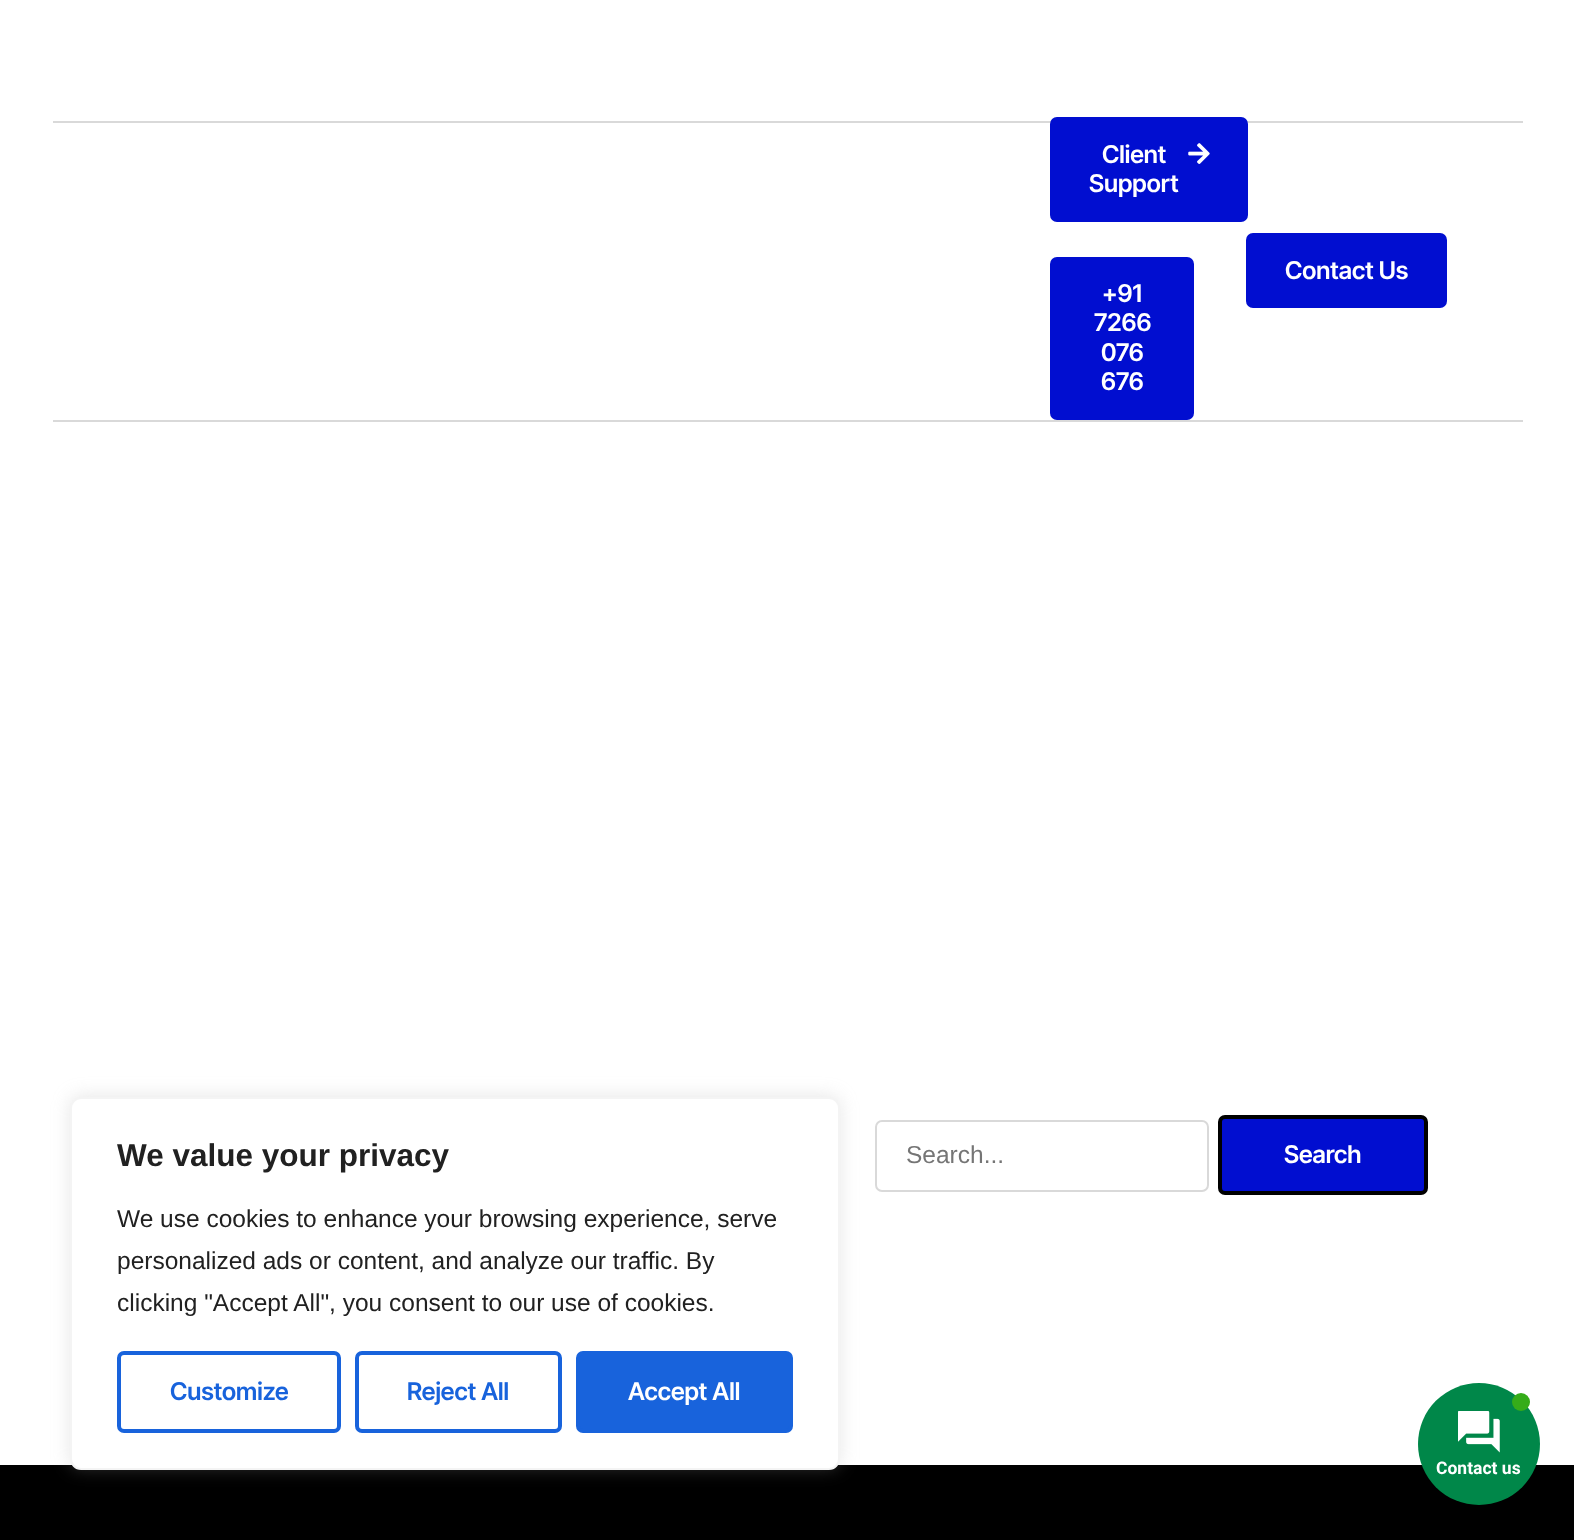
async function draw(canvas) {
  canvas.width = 1574;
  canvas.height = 1540;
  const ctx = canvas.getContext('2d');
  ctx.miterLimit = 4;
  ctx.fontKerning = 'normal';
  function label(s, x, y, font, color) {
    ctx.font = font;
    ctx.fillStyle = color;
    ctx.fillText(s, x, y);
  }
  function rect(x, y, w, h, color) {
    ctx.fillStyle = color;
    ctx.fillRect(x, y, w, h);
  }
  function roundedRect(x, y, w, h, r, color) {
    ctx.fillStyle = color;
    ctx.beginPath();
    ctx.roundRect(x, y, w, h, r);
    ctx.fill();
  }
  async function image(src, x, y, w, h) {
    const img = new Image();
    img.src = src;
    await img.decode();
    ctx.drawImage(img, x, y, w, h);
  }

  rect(0, 0, 1574, 1540, '#fff');
  rect(53, 121, 1470, 2, '#d9d9d9');
  roundedRect(1050, 117, 198, 105, 7, '#010ed0');
  label('Client', 1102, 163, '600 24.5px Inter Tight', '#fff');
  label('Support', 1089, 192, '600 24.5px Inter Tight', '#fff');
  await image('assets/img1.png', 1188, 143, 22, 21);
  roundedRect(1050, 257, 144, 163, 7, '#010ed0');
  label('+91', 1102, 302, '600 24.5px Inter Tight', '#fff');
  label('7266', 1094, 331, '600 24.5px Inter Tight', '#fff');
  label('076', 1101, 361, '600 24.5px Inter Tight', '#fff');
  label('676', 1101, 390, '600 24.5px Inter Tight', '#fff');
  roundedRect(1246, 233, 201, 75, 7, '#010ed0');
  label('Contact Us', 1285, 279, '600 24.5px Inter Tight', '#fff');
  rect(53, 420, 1470, 2, '#d9d9d9');
  rect(0, 1465, 1574, 75, '#000');
  ctx.fillStyle = '#acabab4d';
  ctx.filter = 'blur(9px)';
  ctx.beginPath();
  ctx.roundRect(70, 1096, 770, 372, 11);
  ctx.fill();
  ctx.filter = 'none';
  ctx.fillStyle = '#fff';
  ctx.beginPath();
  ctx.roundRect(71, 1098, 768, 371, 10);
  ctx.fill();
  ctx.strokeStyle = '#f4f4f4';
  ctx.lineWidth = 2;
  ctx.stroke();
  label('We value your privacy', 117, 1166, 'bold 31.5px Liberation Sans', '#212121');
  label('We use cookies to enhance your browsing experience, serve', 117, 1227, '24.5px Liberation Sans', '#212121');
  label('personalized ads or content, and analyze our traffic. By', 117, 1269, '24.5px Liberation Sans', '#212121');
  label('clicking "Accept All", you consent to our use of cookies.', 117, 1311, '24.5px Liberation Sans', '#212121');
  ctx.beginPath();
  ctx.roundRect(119, 1353, 220, 78, 5);
  ctx.strokeStyle = '#1863dc';
  ctx.lineWidth = 4;
  ctx.stroke();
  label('Customize', 170, 1400, '600 24.5px Inter Tight', '#1863dc');
  ctx.beginPath();
  ctx.roundRect(357, 1353, 203, 78, 5);
  ctx.stroke();
  label('Reject All', 407, 1400, '600 24.5px Inter Tight', '#1863dc');
  ctx.beginPath();
  ctx.roundRect(578, 1353, 213, 78, 5);
  ctx.fill();
  ctx.stroke();
  label('Accept All', 628, 1400, '600 24.5px Inter Tight', '#fff');
  ctx.beginPath();
  ctx.roundRect(876, 1121, 332, 70, 6);
  ctx.strokeStyle = '#d9d9d9';
  ctx.lineWidth = 2;
  ctx.stroke();
  label('Search...', 906, 1163, '24.5px Liberation Sans', '#757575');
  ctx.fillStyle = '#010ed0';
  ctx.beginPath();
  ctx.roundRect(1220, 1117, 206, 76, 5);
  ctx.fill();
  ctx.strokeStyle = '#000';
  ctx.lineWidth = 4;
  ctx.stroke();
  label('Search', 1284, 1163, '600 24.5px Inter Tight', '#fff');
  ctx.fillStyle = '#008749';
  ctx.beginPath();
  ctx.arc(1479, 1444, 61, 0, 2 * Math.PI);
  ctx.fill();
  ctx.fillStyle = '#35ac19';
  ctx.beginPath();
  ctx.arc(1521, 1402, 9, 0, 2 * Math.PI);
  ctx.fill();
  await image('assets/img2.png', 1458, 1411, 42, 42);
  label('Contact us', 1436, 1474, 'bold 17.5px Roboto', '#fff');
}

draw(document.querySelector('canvas'));
